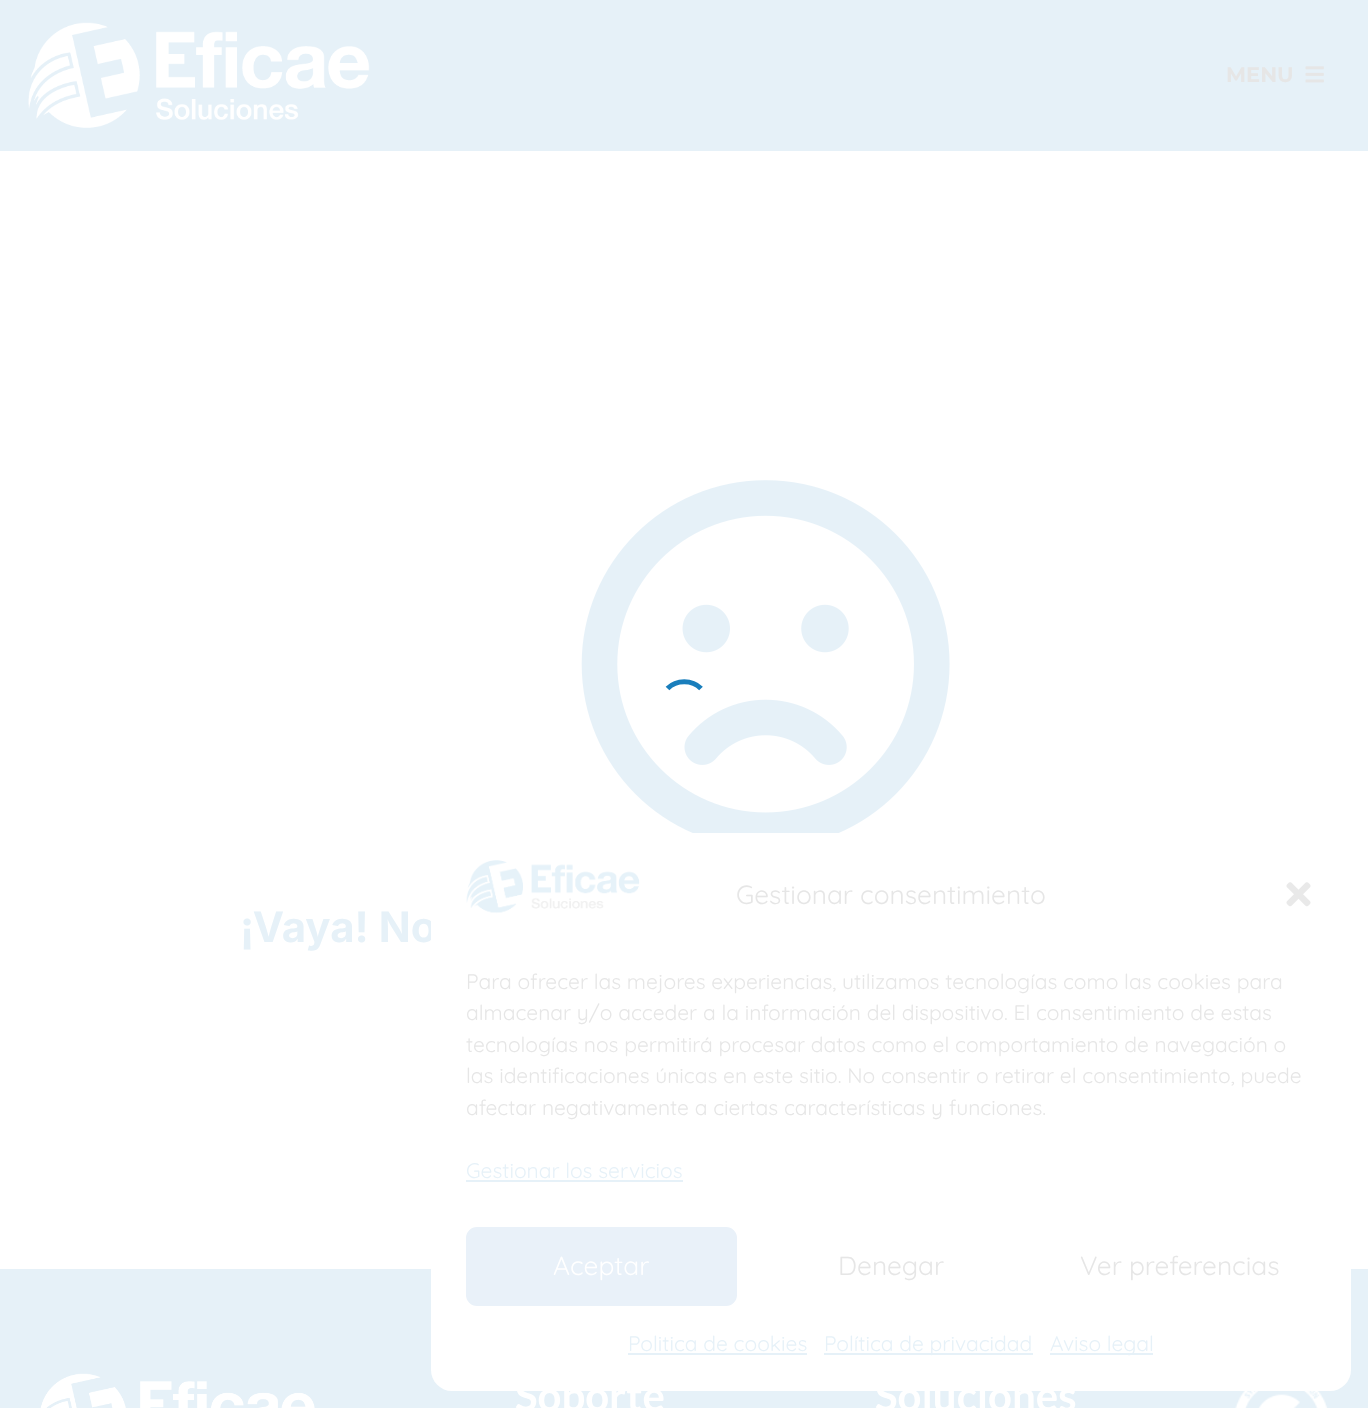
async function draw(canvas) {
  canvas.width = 1368;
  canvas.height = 1408;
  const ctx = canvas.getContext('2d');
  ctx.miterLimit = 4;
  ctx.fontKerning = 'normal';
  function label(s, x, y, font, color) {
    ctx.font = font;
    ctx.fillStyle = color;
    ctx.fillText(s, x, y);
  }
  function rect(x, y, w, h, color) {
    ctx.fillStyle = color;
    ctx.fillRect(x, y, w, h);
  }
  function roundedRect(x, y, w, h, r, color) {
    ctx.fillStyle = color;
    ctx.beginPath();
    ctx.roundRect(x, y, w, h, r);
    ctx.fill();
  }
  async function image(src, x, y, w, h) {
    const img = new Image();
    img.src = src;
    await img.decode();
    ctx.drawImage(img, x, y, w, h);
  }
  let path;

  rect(0, 0, 1368, 1408, '#fff');
  rect(0, 0, 1368, 151, '#e6f1f8');
  await image('assets/img1.png', 28, 22, 342, 106);
  label('MENU', 1226, 82, 'bold 21px Montserrat', '#e6e6e6');
  await image('assets/img2.png', 1305, 66, 19, 17);
  await image('assets/img3.png', 581, 480, 369, 353);
  label('¡Vaya! No', 240, 942, 'bold 42px Inter', '#e6f1f8');
  rect(0, 1269, 1368, 139, '#e6f1f8');
  await image('assets/img4.png', 40, 1373, 275, 35);
  label('Soporte', 515, 1411, 'bold 42px Lato', '#fff');
  label('Soluciones', 875, 1411, 'bold 42px Lato', '#fff');
  await image('assets/img5.png', 1235, 1391, 93, 17);
  path = new Path2D('M667.5 688.5C676.5 679.5 692 679.5 701 688.5');
  ctx.strokeStyle = '#197ebc';
  ctx.lineWidth = 5.2;
  ctx.stroke(path);
  roundedRect(431, 833, 920, 558, 21, '#fff');
  await image('assets/img6.png', 466, 860, 174, 54);
  label('Gestionar consentimiento', 736, 904, '26.25px Quicksand', '#e6e6e6');
  await image('assets/img7.png', 1286, 882, 25, 25);
  label('Para ofrecer las mejores experiencias, utilizamos tecnologías como las cookies para', 466, 989, '21px Quicksand', '#e6e6e6');
  label('almacenar y/o acceder a la información del dispositivo. El consentimiento de estas', 466, 1020, '21px Quicksand', '#e6e6e6');
  label('tecnologías nos permitirá procesar datos como el comportamiento de navegación o', 466, 1052, '21px Quicksand', '#e6e6e6');
  label('las identificaciones únicas en este sitio. No consentir o retirar el consentimiento, puede', 466, 1083, '21px Quicksand', '#e6e6e6');
  label('afectar negativamente a ciertas características y funciones.', 466, 1115, '21px Quicksand', '#e6e6e6');
  label('Gestionar los servicios', 466, 1178, '21px Quicksand', '#e6f1f8');
  rect(466, 1180, 217, 2, '#e6f1f8');
  ctx.fillStyle = '#e9f1f9';
  ctx.beginPath();
  ctx.roundRect(467, 1228, 269, 77, 10);
  ctx.fill();
  ctx.strokeStyle = '#e9f1f9';
  ctx.lineWidth = 2;
  ctx.stroke();
  label('Aceptar', 553, 1275, '26.25px Quicksand', '#fff');
  label('Denegar', 838, 1275, '26.25px Quicksand', '#e6e6e6');
  label('Ver preferencias', 1080, 1275, '26.25px Quicksand', '#e6e6e6');
  label('Politica de cookies', 628, 1351, '21px Quicksand', '#e6f1f8');
  rect(628, 1353, 179, 2, '#e6f1f8');
  rect(824, 1353, 209, 2, '#e6f1f8');
  label('Política de privacidad', 824, 1351, '21px Quicksand', '#e6f1f8');
  rect(1050, 1353, 103, 2, '#e6f1f8');
  label('Aviso legal', 1050, 1351, '21px Quicksand', '#e6f1f8');
}

draw(document.querySelector('canvas'));
